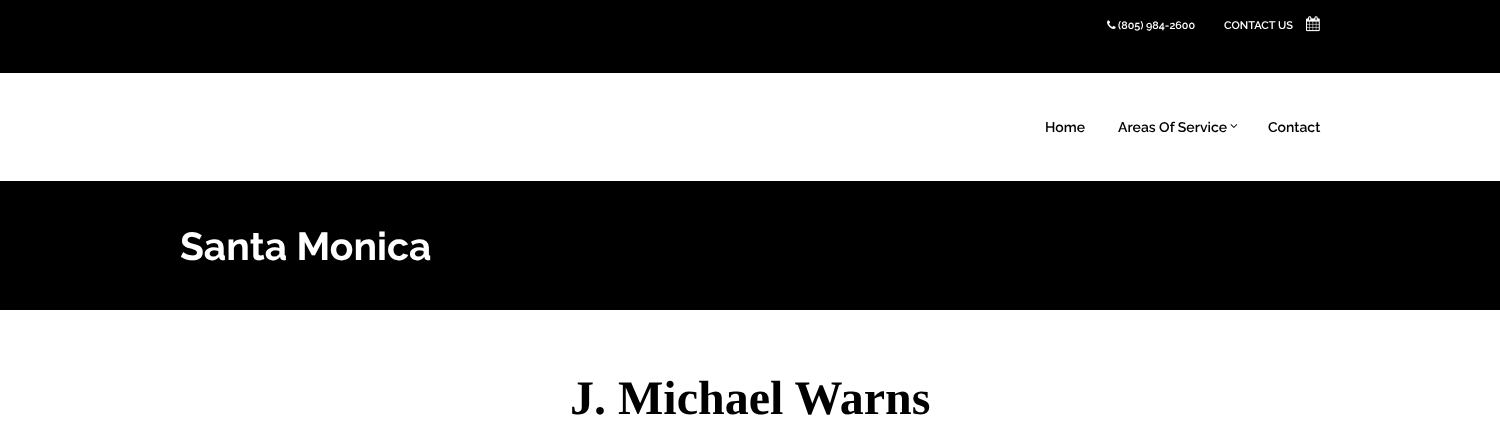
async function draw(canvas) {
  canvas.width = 1500;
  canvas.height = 423;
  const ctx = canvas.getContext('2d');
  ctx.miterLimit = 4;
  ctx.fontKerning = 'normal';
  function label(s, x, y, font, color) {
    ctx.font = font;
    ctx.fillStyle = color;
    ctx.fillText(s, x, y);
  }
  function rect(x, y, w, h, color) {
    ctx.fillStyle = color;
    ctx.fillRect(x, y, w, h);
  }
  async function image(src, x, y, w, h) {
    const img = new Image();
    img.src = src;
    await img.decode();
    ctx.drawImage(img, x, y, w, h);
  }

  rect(0, 0, 1500, 423, '#000');
  await image('assets/img1.png', 1107, 20, 9, 9);
  label('(805) 984-2600', 1118, 29, '600 10.75px Raleway', '#fff');
  label('CONTACT US', 1224, 29, '600 11px Raleway', '#fff');
  await image('assets/img2.png', 1306, 16, 14, 16);
  rect(0, 73, 1500, 108, '#fff');
  label('Home', 1045, 132, '600 14px Raleway', '#000');
  label('Areas Of Service', 1118, 132, '600 14px Raleway', '#000');
  await image('assets/img3.png', 1230, 124, 8, 4);
  label('Contact', 1268, 132, '600 14px Raleway', '#000');
  label('Santa Monica', 180, 260, 'bold 39px Raleway', '#fff');
  rect(0, 310, 1500, 113, '#fff');
  label('J. Michael Warns', 570, 414, 'bold 48px Liberation Serif', '#000');
}

draw(document.querySelector('canvas'));
